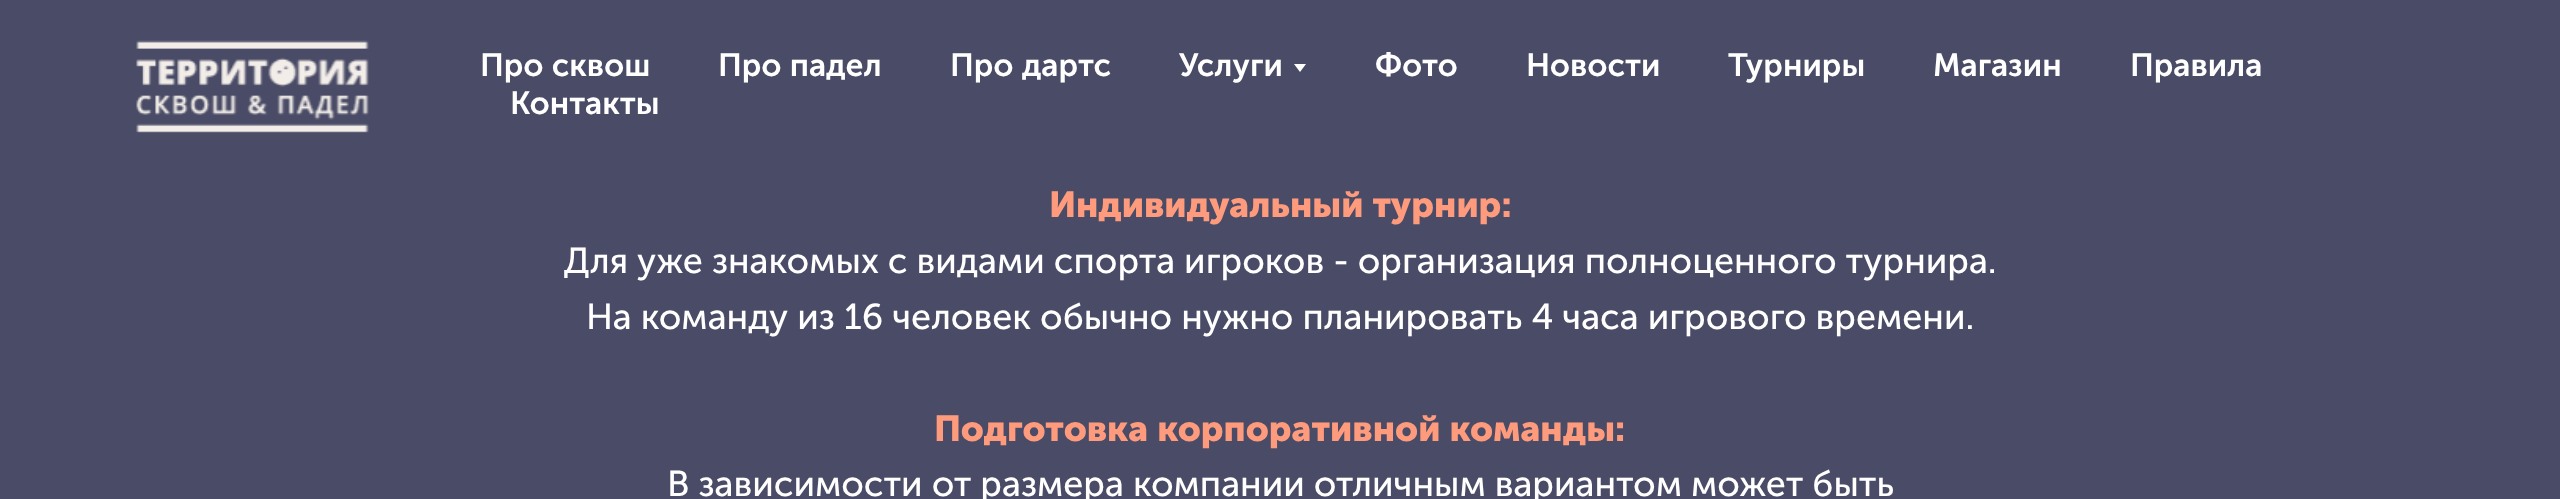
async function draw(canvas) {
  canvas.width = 2560;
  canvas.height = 499;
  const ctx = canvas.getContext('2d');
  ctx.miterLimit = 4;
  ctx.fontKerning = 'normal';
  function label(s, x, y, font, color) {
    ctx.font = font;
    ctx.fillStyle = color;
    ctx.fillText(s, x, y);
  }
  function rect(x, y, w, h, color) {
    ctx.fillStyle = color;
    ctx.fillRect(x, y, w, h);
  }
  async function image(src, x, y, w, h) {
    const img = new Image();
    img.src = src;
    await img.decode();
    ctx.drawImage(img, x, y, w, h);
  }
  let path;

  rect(0, 0, 2560, 499, '#4a4c67');
  await image('assets/img1.png', 136, 40, 233, 93);
  label('Про сквош', 480, 76, '600 32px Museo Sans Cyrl', '#fff');
  label('Про падел', 718, 76, '600 32px Museo Sans Cyrl', '#fff');
  label('Про дартс', 950, 76, '600 32px Museo Sans Cyrl', '#fff');
  label('Услуги', 1179, 76, '600 32px Museo Sans Cyrl', '#fff');
  path = new Path2D('M1294 64H1306L1300 72Z');
  ctx.fill(path);
  label('Фото', 1375, 76, '600 32px Museo Sans Cyrl', '#fff');
  label('Новости', 1526, 76, '600 32px Museo Sans Cyrl', '#fff');
  label('Турниры', 1728, 76, '600 32px Museo Sans Cyrl', '#fff');
  label('Магазин', 1933, 76, '600 32px Museo Sans Cyrl', '#fff');
  label('Правила', 2130, 76, '600 32px Museo Sans Cyrl', '#fff');
  label('Контакты', 510, 114, '600 32px Museo Sans Cyrl', '#fff');
  label('Индивидуальный турнир:', 1049, 217, 'bold 36px Museo Sans Cyrl', '#ff9b7d');
  label('Для уже знакомых с видами спорта игроков - организация полноценного турнира.', 564, 273, '36px Museo Sans Cyrl', '#fff');
  label('На команду из 16 человек обычно нужно планировать 4 часа игрового времени.', 586, 329, '36px Museo Sans Cyrl', '#fff');
  label('Подготовка корпоративной команды:', 934, 441, 'bold 36px Museo Sans Cyrl', '#ff9b7d');
  label('В зависимости от размера компании отличным вариантом может быть', 667, 496, '36px Museo Sans Cyrl', '#fff');
}

draw(document.querySelector('canvas'));
